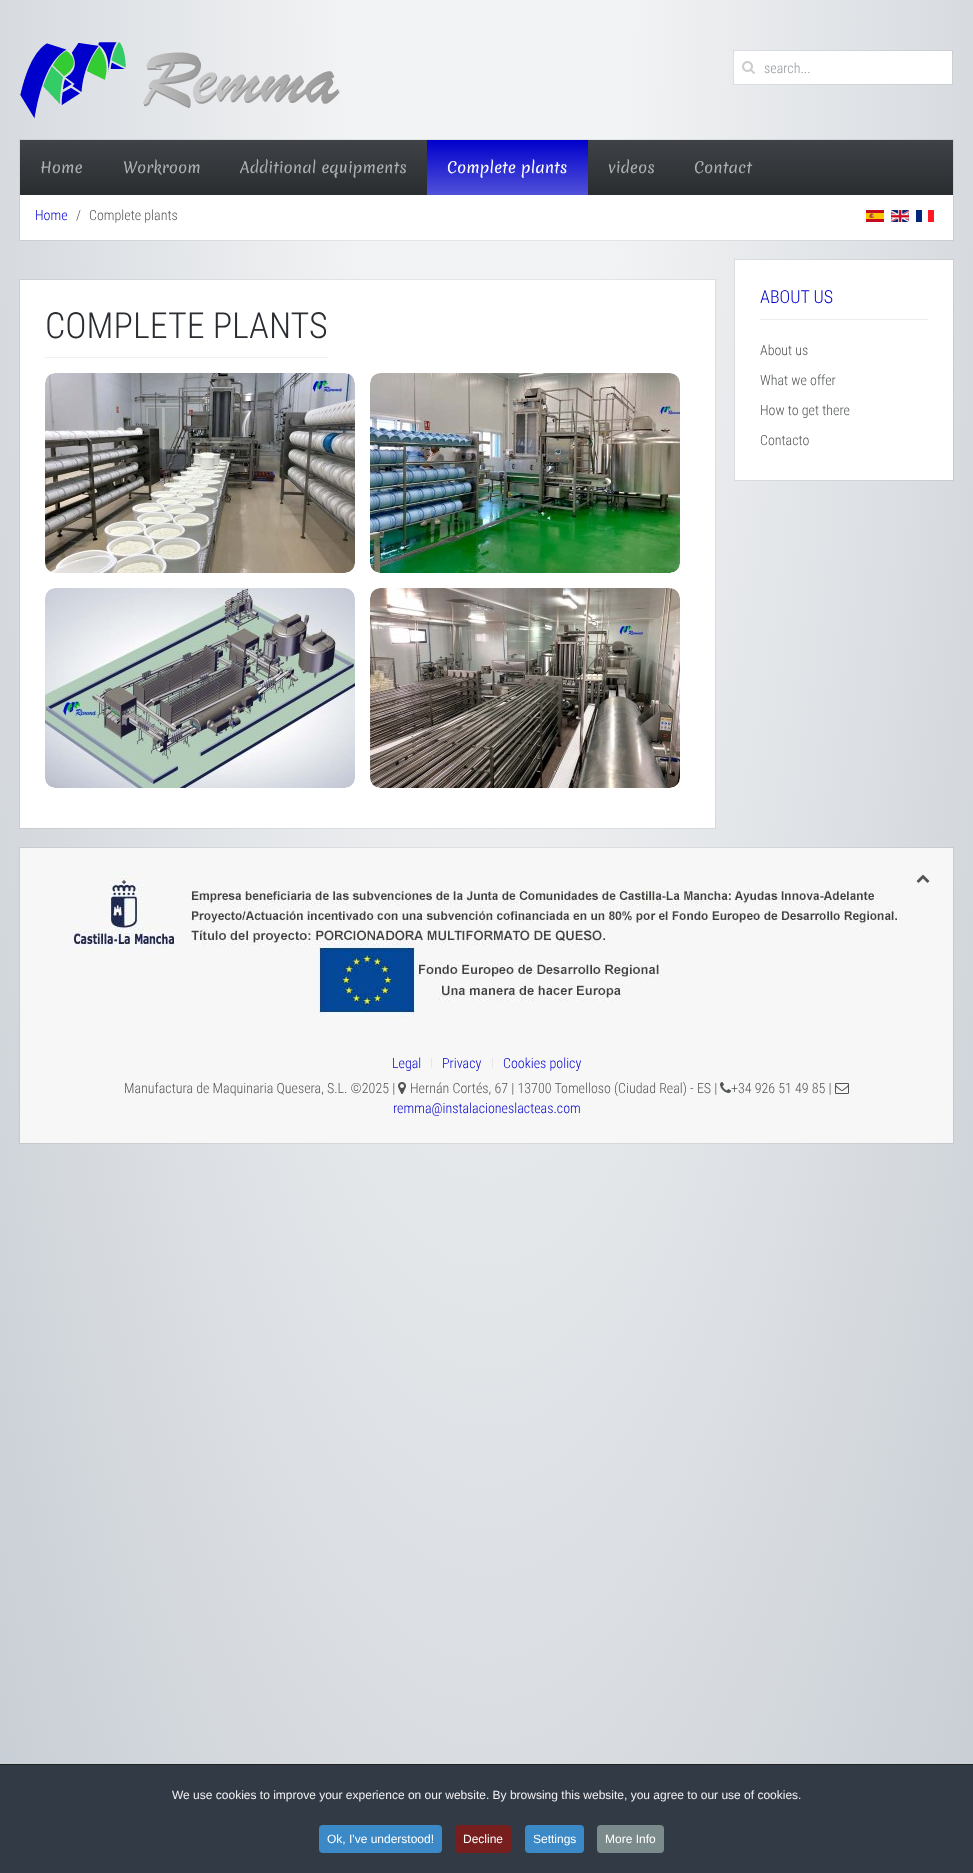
async function draw(canvas) {
  canvas.width = 973;
  canvas.height = 1873;
  const ctx = canvas.getContext('2d');
  ctx.miterLimit = 4;
  ctx.fontKerning = 'normal';
  function label(s, x, y, font, color) {
    ctx.font = font;
    ctx.fillStyle = color;
    ctx.fillText(s, x, y);
  }
  function rect(x, y, w, h, color) {
    ctx.fillStyle = color;
    ctx.fillRect(x, y, w, h);
  }
  function roundedRect(x, y, w, h, r, color) {
    ctx.fillStyle = color;
    ctx.beginPath();
    ctx.roundRect(x, y, w, h, r);
    ctx.fill();
  }
  async function image(src, x, y, w, h) {
    const img = new Image();
    img.src = src;
    await img.decode();
    ctx.drawImage(img, x, y, w, h);
  }
  let gradient;

  rect(0, 0, 973, 1873, '#fff');
  gradient = ctx.createRadialGradient(487, 0, 0, 487, 0, 688);
  gradient.addColorStop(0.2, '#f2f3f4');
  gradient.addColorStop(1, '#c7cdd4');
  ctx.fillStyle = gradient;
  ctx.beginPath();
  ctx.rect(0, 0, 973, 1764);
  ctx.save();
  ctx.clip();
  ctx.scale(1, 2649 / 688);
  ctx.fillRect(0, 0, 973, 487);
  ctx.restore();
  await image('assets/img1.png', 20, 42, 320, 77);
  roundedRect(734, 51, 218, 33, 1, '#fff');
  ctx.strokeStyle = '#0000000f';
  ctx.strokeRect(733.5, 50.5, 219, 34);
  await image('assets/img2.png', 742, 61, 13, 13);
  label('search...', 764, 73, '300 14px Roboto Condensed', '#92969a');
  ctx.strokeRect(19.5, 139.5, 934, 101);
  rect(20, 195, 933, 45, '#fff');
  gradient = ctx.createLinearGradient(487, 140, 487, 195);
  gradient.addColorStop(0, '#3f4246');
  gradient.addColorStop(1, '#2a2d30');
  ctx.fillStyle = gradient;
  ctx.fillRect(20, 140, 933, 55);
  label('Home', 40, 173, '15px Merienda', '#aeafb0');
  label('Workroom', 123, 173, '15px Merienda', '#aeafb0');
  label('Additional equipments', 240, 173, '15px Merienda', '#aeafb0');
  gradient = ctx.createLinearGradient(508, 140, 508, 195);
  gradient.addColorStop(0, '#00c');
  gradient.addColorStop(1, '#5151d9');
  ctx.fillStyle = gradient;
  ctx.fillRect(427, 140, 161, 55);
  label('Complete plants', 447, 173, '15px Merienda', '#fff');
  label('videos', 608, 173, '15px Merienda', '#aeafb0');
  label('Contact', 694, 173, '15px Merienda', '#aeafb0');
  label('Home', 35, 220, '300 14px Roboto Condensed', '#00c');
  label('/', 76, 220, '300 14px Roboto Condensed', '#515456');
  label('Complete plants', 89, 220, '300 14px Roboto Condensed', '#515456');
  await image('assets/img3.png', 866, 210, 18, 12);
  await image('assets/img4.png', 891, 210, 18, 12);
  await image('assets/img5.png', 916, 210, 18, 12);
  ctx.strokeRect(19.5, 279.5, 696, 549);
  rect(20, 280, 695, 548, '#fff');
  rect(45, 357, 283, 1, '#f0f0f0');
  label('COMPLETE PLANTS', 45, 338, '300 36px Roboto Condensed', '#2a2d31');
  await image('assets/img6.png', 45, 373, 310, 200);
  await image('assets/img7.png', 370, 373, 310, 200);
  await image('assets/img8.png', 45, 588, 310, 200);
  await image('assets/img9.png', 370, 588, 310, 200);
  ctx.strokeRect(734.5, 259.5, 219, 221);
  rect(735, 260, 218, 220, '#fff');
  rect(760, 319, 168, 1, '#ededed');
  label('ABOUT US', 760, 303, '300 18px Roboto Condensed', '#00c');
  label('About us', 760, 355, '300 14px Roboto Condensed', '#515456');
  label('What we offer', 760, 385, '300 14px Roboto Condensed', '#515456');
  label('How to get there', 760, 415, '300 14px Roboto Condensed', '#515456');
  label('Contacto', 760, 445, '300 14px Roboto Condensed', '#515456');
  ctx.strokeRect(19.5, 847.5, 934, 296);
  rect(20, 848, 933, 295, '#f7f7f7');
  await image('assets/img10.png', 64, 873, 839, 145);
  await image('assets/img11.png', 916, 874, 14, 9);
  label('Legal', 392, 1068, '300 14px Roboto Condensed', '#00c');
  rect(431, 1058, 1, 10, '#e6e6e6');
  label('Privacy', 442, 1068, '300 14px Roboto Condensed', '#00c');
  rect(492, 1058, 1, 10, '#e6e6e6');
  label('Cookies policy', 503, 1068, '300 14px Roboto Condensed', '#00c');
  label('Manufactura de Maquinaria Quesera, S.L. ©2025 |', 124, 1093, '300 14px Roboto Condensed', '#515456');
  await image('assets/img12.png', 398, 1082, 8, 12);
  label('Hernán Cortés, 67 | 13700 Tomelloso (Ciudad Real) - ES |', 410, 1093, '300 14px Roboto Condensed', '#515456');
  await image('assets/img13.png', 720, 1082, 11, 11);
  label('+34 926 51 49 85 |', 731, 1093, '300 14px Roboto Condensed', '#515456');
  await image('assets/img14.png', 835, 1083, 14, 11);
  label('remma@instalacioneslacteas.com', 393, 1113, '300 14px Roboto Condensed', '#00c');
  rect(0, 1765, 973, 108, '#323a45');
  rect(0, 1764, 973, 1, '#202226');
  label('We use cookies to improve your experience on our website. By browsing this website, you agree to our use of cookies.', 172, 1799, '12px Liberation Sans', '#f1f1f3');
  roundedRect(319, 1825, 123, 28, 4, '#3b89c7');
  label('Ok, I\'ve understood!', 327, 1843, '12px Liberation Sans', '#fff');
  roundedRect(455, 1825, 56, 28, 4, '#771f1f');
  label('Decline', 463, 1843, '12px Liberation Sans', '#fff');
  roundedRect(525, 1825, 59, 28, 4, '#3b89c7');
  label('Settings', 533, 1843, '12px Liberation Sans', '#fff');
  roundedRect(597, 1825, 67, 28, 4, '#7b8a8b');
  label('More Info', 605, 1843, '12px Liberation Sans', '#fff');
}

draw(document.querySelector('canvas'));
